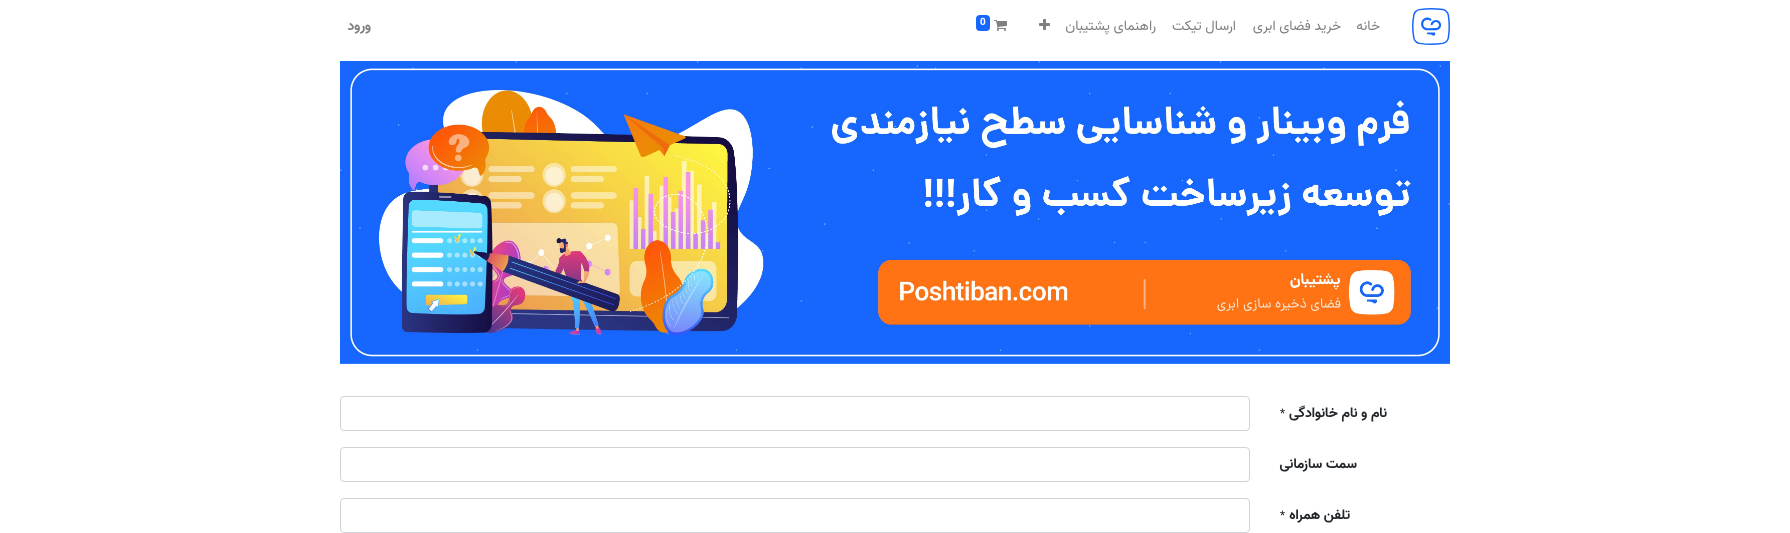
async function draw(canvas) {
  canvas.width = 1790;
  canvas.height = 533;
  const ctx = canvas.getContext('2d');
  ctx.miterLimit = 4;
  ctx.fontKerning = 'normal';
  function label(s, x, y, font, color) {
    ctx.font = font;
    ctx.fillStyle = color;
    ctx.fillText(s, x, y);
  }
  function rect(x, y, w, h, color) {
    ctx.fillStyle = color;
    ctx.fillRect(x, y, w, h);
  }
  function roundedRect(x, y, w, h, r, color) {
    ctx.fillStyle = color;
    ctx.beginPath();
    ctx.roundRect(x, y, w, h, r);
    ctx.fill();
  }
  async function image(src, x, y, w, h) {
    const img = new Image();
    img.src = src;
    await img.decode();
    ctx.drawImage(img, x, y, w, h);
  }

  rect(0, 0, 1790, 533, '#fff');
  await image('assets/img1.png', 1412, 8, 38, 37);
  ctx.direction = 'rtl';
  label('خانه', 1380, 30, '14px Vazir', '#808080');
  label('خرید فضای ابری', 1341, 30, '14px Vazir', '#808080');
  label('ارسال تیکت', 1236, 30, '14px Vazir', '#808080');
  label('راهنمای پشتیبان', 1156, 30, '14px Vazir', '#808080');
  await image('assets/img2.png', 1039, 19, 11, 11);
  await image('assets/img3.png', 994, 20, 13, 11);
  roundedRect(976, 15, 14, 16, 4, '#1666ff');
  ctx.direction = 'ltr';
  label('0', 980, 25, 'bold 10px Vazir', '#fff');
  ctx.direction = 'rtl';
  label('ورود', 371, 30, 'bold 14px Vazir', '#808080');
  await image('assets/img4.png', 340, 61, 1110, 303);
  label('نام و نام خانوادگی', 1387, 417, 'bold 14px Vazir', '#212529');
  ctx.direction = 'ltr';
  label('*', 1280, 417, '12px Vazir', '#212529');
  ctx.beginPath();
  ctx.roundRect(340.5, 396.5, 909, 34, 3.5);
  ctx.strokeStyle = '#ced4da';
  ctx.stroke();
  ctx.direction = 'rtl';
  label('سمت سازمانی', 1357, 468, 'bold 14px Vazir', '#212529');
  ctx.beginPath();
  ctx.roundRect(340.5, 447.5, 909, 34, 3.5);
  ctx.stroke();
  label('تلفن همراه', 1350, 519, 'bold 14px Vazir', '#212529');
  ctx.direction = 'ltr';
  label('*', 1280, 519, '12px Vazir', '#212529');
  ctx.beginPath();
  ctx.roundRect(340.5, 498.5, 909, 34, 3.5);
  ctx.stroke();
}

draw(document.querySelector('canvas'));
